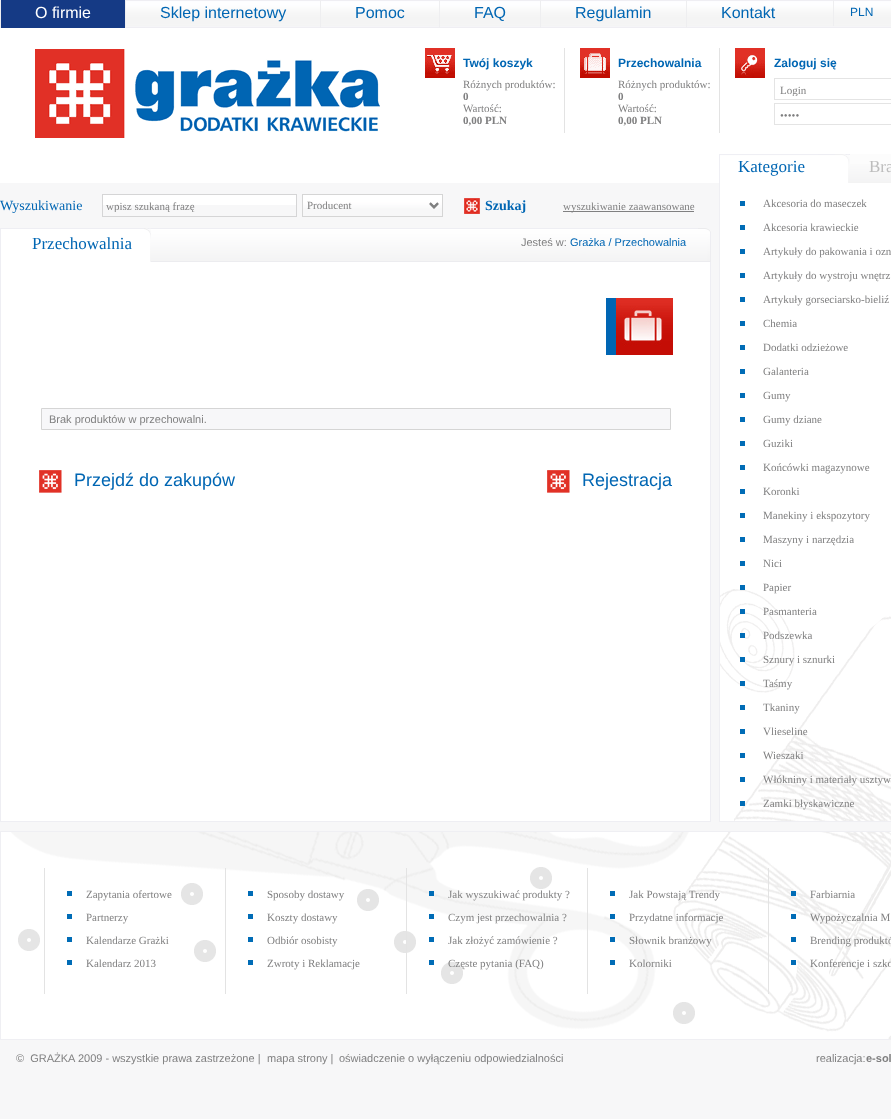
async function draw(canvas) {
  canvas.width = 891;
  canvas.height = 1119;
  const ctx = canvas.getContext('2d');
  ctx.miterLimit = 4;
  ctx.fontKerning = 'normal';
  function label(s, x, y, font, color) {
    ctx.font = font;
    ctx.fillStyle = color;
    ctx.fillText(s, x, y);
  }
  function rect(x, y, w, h, color) {
    ctx.fillStyle = color;
    ctx.fillRect(x, y, w, h);
  }
  async function image(src, x, y, w, h) {
    const img = new Image();
    img.src = src;
    await img.decode();
    ctx.drawImage(img, x, y, w, h);
  }
  let path;

  rect(0, 0, 891, 1119, '#f7f7f8');
  rect(0, 28, 891, 155, '#fff');
  await image('assets/img1.png', 126, 0, 765, 28);
  rect(1, 0, 124, 28, '#153a85');
  rect(0, 0, 1, 28, '#eeeef0');
  label('O firmie', 35, 18, '16px Liberation Sans', '#fff');
  rect(125, 0, 1, 28, '#eeeef0');
  label('Sklep internetowy', 160, 18, '16px Liberation Sans', '#0066b3');
  rect(320, 0, 1, 28, '#eeeef0');
  label('Pomoc', 355, 18, '16px Liberation Sans', '#0066b3');
  rect(439, 0, 1, 28, '#eeeef0');
  label('FAQ', 474, 18, '16px Liberation Sans', '#0066b3');
  rect(540, 0, 1, 28, '#eeeef0');
  label('Regulamin', 575, 18, '16px Liberation Sans', '#0066b3');
  rect(686, 0, 1, 28, '#eeeef0');
  label('Kontakt', 721, 18, '16px Liberation Sans', '#0066b3');
  rect(833, 0, 1, 26, '#eeeef0');
  label('PLN', 850, 16, '12px Liberation Sans', '#0066b3');
  await image('assets/img2.png', 35, 49, 345, 89);
  rect(564, 48, 1, 85, '#e3e3e3');
  await image('assets/img3.png', 425, 48, 30, 30);
  label('Twój koszyk', 463, 67, 'bold 12px Liberation Sans', '#0066b3');
  label('Różnych produktów:', 463, 88, '11px Liberation Serif', '#808081');
  label('0', 463, 100, 'bold 11px Liberation Serif', '#808081');
  label('Wartość:', 463, 112, '11px Liberation Serif', '#808081');
  label('0,00 PLN', 463, 124, 'bold 11px Liberation Serif', '#808081');
  rect(719, 48, 1, 85, '#e3e3e3');
  await image('assets/img4.png', 580, 48, 30, 30);
  label('Przechowalnia', 618, 67, 'bold 12px Liberation Sans', '#0066b3');
  label('Różnych produktów:', 618, 88, '11px Liberation Serif', '#808081');
  label('0', 618, 100, 'bold 11px Liberation Serif', '#808081');
  label('Wartość:', 618, 112, '11px Liberation Serif', '#808081');
  label('0,00 PLN', 618, 124, 'bold 11px Liberation Serif', '#808081');
  await image('assets/img5.png', 735, 48, 30, 30);
  label('Zaloguj się', 774, 67, 'bold 12px Liberation Sans', '#0066b3');
  ctx.strokeStyle = '#e4e4e4';
  ctx.strokeRect(774.5, 78.5, 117, 21);
  ctx.save();
  ctx.beginPath();
  ctx.rect(780, 84, 111, 12);
  ctx.clip();
  label('Login', 780, 94, '11px Liberation Serif', '#808081');
  ctx.restore();
  ctx.strokeRect(774.5, 103.5, 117, 21);
  label('•••••', 780, 119, '11px Liberation Serif', '#808081');
  await image('assets/img6.png', 850, 164, 41, 19);
  await image('assets/img7.png', 719, 154, 131, 29);
  label('Kategorie', 738, 172, '17px Liberation Serif', '#0066b3');
  rect(850, 154, 41, 10, '#fcfcfc');
  label('Bra', 869, 172, '17px Liberation Serif', '#bdbdbd');
  label('Wyszukiwanie', 0, 210, '14px Liberation Serif', '#0066b3');
  rect(103, 195, 193, 10, '#fff');
  ctx.strokeStyle = '#d5d5d6';
  ctx.strokeRect(102.5, 194.5, 194, 22);
  ctx.save();
  ctx.beginPath();
  ctx.rect(106, 200, 188, 12);
  ctx.clip();
  label('wpisz szukaną frazę', 106, 210, '11px Liberation Serif', '#808081');
  ctx.restore();
  await image('assets/img8.png', 303, 195, 139, 14);
  ctx.strokeStyle = '#d5d5d5';
  ctx.strokeRect(302.5, 194.5, 140, 22);
  path = new Path2D('M430 203.5L434 207.5L438 203.5');
  ctx.strokeStyle = '#808081';
  ctx.lineWidth = 2;
  ctx.stroke(path);
  label('Producent', 307, 209, '11px Liberation Serif', '#808081');
  await image('assets/img9.png', 464, 198, 16, 16);
  label('Szukaj', 485, 210, 'bold 14px Liberation Serif', '#0066b3');
  rect(563, 211, 131, 1, '#808081');
  label('wyszukiwanie zaawansowane', 563, 210, '11px Liberation Serif', '#808081');
  await image('assets/img10.png', 151, 228, 560, 34);
  rect(1, 229, 143, 33, '#fff');
  rect(0, 228, 144, 1, '#eeeef3');
  rect(0, 228, 1, 34, '#eeeef3');
  label('Przechowalnia', 32, 249, '17px Liberation Serif', '#0066b3');
  await image('assets/img11.png', 144, 228, 7, 34);
  label('Jesteś w:', 521, 246, '11px Liberation Sans', '#808081');
  label('Grażka / Przechowalnia', 570, 246, '11px Liberation Sans', '#0066b3');
  rect(1, 262, 709, 559, '#fff');
  rect(710, 262, 1, 560, '#eeeef3');
  rect(0, 821, 711, 1, '#eeeef3');
  rect(0, 262, 1, 560, '#eeeef3');
  await image('assets/img12.png', 606, 298, 67, 57);
  ctx.fillStyle = '#f7f7f9';
  ctx.beginPath();
  ctx.rect(41.5, 408.5, 629, 21);
  ctx.fill();
  ctx.strokeStyle = '#d5d5d5';
  ctx.lineWidth = 1;
  ctx.stroke();
  label('Brak produktów w przechowalni.', 49, 423, '11px Liberation Sans', '#808081');
  await image('assets/img13.png', 39, 470, 23, 23);
  label('Przejdź do zakupów', 74, 486, '18px Liberation Sans', '#0066b3');
  await image('assets/img13.png', 547, 470, 23, 23);
  label('Rejestracja', 582, 486, '18px Liberation Sans', '#0066b3');
  rect(720, 183, 171, 406, '#fff');
  await image('assets/img14.png', 720, 589, 171, 232);
  rect(719, 821, 172, 1, '#efeff3');
  rect(719, 183, 1, 639, '#efeff3');
  rect(740, 201, 5, 5, '#006cb6');
  label('Akcesoria do maseczek', 763, 207, '11px Liberation Serif', '#808081');
  rect(740, 225, 5, 5, '#006cb6');
  label('Akcesoria krawieckie', 763, 231, '11px Liberation Serif', '#808081');
  rect(740, 249, 5, 5, '#006cb6');
  label('Artykuły do pakowania i ozn', 763, 255, '11px Liberation Serif', '#808081');
  rect(740, 273, 5, 5, '#006cb6');
  label('Artykuły do wystroju wnętrz', 763, 279, '11px Liberation Serif', '#808081');
  rect(740, 297, 5, 5, '#006cb6');
  label('Artykuły gorseciarsko-bieliź', 763, 303, '11px Liberation Serif', '#808081');
  rect(740, 321, 5, 5, '#006cb6');
  label('Chemia', 763, 327, '11px Liberation Serif', '#808081');
  rect(740, 345, 5, 5, '#006cb6');
  label('Dodatki odzieżowe', 763, 351, '11px Liberation Serif', '#808081');
  rect(740, 369, 5, 5, '#006cb6');
  label('Galanteria', 763, 375, '11px Liberation Serif', '#808081');
  rect(740, 393, 5, 5, '#006cb6');
  label('Gumy', 763, 399, '11px Liberation Serif', '#808081');
  rect(740, 417, 5, 5, '#006cb6');
  label('Gumy dziane', 763, 423, '11px Liberation Serif', '#808081');
  rect(740, 441, 5, 5, '#006cb6');
  label('Guziki', 763, 447, '11px Liberation Serif', '#808081');
  rect(740, 465, 5, 5, '#006cb6');
  label('Końcówki magazynowe', 763, 471, '11px Liberation Serif', '#808081');
  rect(740, 489, 5, 5, '#006cb6');
  label('Koronki', 763, 495, '11px Liberation Serif', '#808081');
  rect(740, 513, 5, 5, '#006cb6');
  label('Manekiny i ekspozytory', 763, 519, '11px Liberation Serif', '#808081');
  rect(740, 537, 5, 5, '#006cb6');
  label('Maszyny i narzędzia', 763, 543, '11px Liberation Serif', '#808081');
  rect(740, 561, 5, 5, '#006cb6');
  label('Nici', 763, 567, '11px Liberation Serif', '#808081');
  rect(740, 585, 5, 5, '#006cb6');
  label('Papier', 763, 591, '11px Liberation Serif', '#808081');
  rect(740, 609, 5, 5, '#006cb6');
  label('Pasmanteria', 763, 615, '11px Liberation Serif', '#808081');
  rect(740, 633, 5, 5, '#006cb6');
  label('Podszewka', 763, 639, '11px Liberation Serif', '#808081');
  rect(740, 657, 5, 5, '#006cb6');
  label('Sznury i sznurki', 763, 663, '11px Liberation Serif', '#808081');
  rect(740, 681, 5, 5, '#006cb6');
  label('Taśmy', 763, 687, '11px Liberation Serif', '#808081');
  rect(740, 705, 5, 5, '#006cb6');
  label('Tkaniny', 763, 711, '11px Liberation Serif', '#808081');
  rect(740, 729, 5, 5, '#006cb6');
  label('Vlieseline', 763, 735, '11px Liberation Serif', '#808081');
  rect(740, 753, 5, 5, '#006cb6');
  label('Wieszaki', 763, 759, '11px Liberation Serif', '#808081');
  rect(740, 777, 5, 5, '#006cb6');
  label('Włókniny i materiały usztyw', 763, 783, '11px Liberation Serif', '#808081');
  rect(740, 801, 5, 5, '#006cb6');
  label('Zamki błyskawiczne', 763, 807, '11px Liberation Serif', '#808081');
  await image('assets/img15.png', 1, 832, 890, 207);
  ctx.strokeStyle = '#efeff3';
  ctx.strokeRect(0.5, 831.5, 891, 208);
  rect(44, 868, 1, 126, '#e3e3e3');
  rect(67, 891, 5, 5, '#006cb6');
  label('Zapytania ofertowe', 86, 898, '11px Liberation Serif', '#808081');
  rect(67, 914, 5, 5, '#006cb6');
  label('Partnerzy', 86, 921, '11px Liberation Serif', '#808081');
  rect(67, 937, 5, 5, '#006cb6');
  label('Kalendarze Grażki', 86, 944, '11px Liberation Serif', '#808081');
  rect(67, 960, 5, 5, '#006cb6');
  label('Kalendarz 2013', 86, 967, '11px Liberation Serif', '#808081');
  rect(225, 868, 1, 126, '#e3e3e3');
  rect(248, 891, 5, 5, '#006cb6');
  label('Sposoby dostawy', 267, 898, '11px Liberation Serif', '#808081');
  rect(248, 914, 5, 5, '#006cb6');
  label('Koszty dostawy', 267, 921, '11px Liberation Serif', '#808081');
  rect(248, 937, 5, 5, '#006cb6');
  label('Odbiór osobisty', 267, 944, '11px Liberation Serif', '#808081');
  rect(248, 960, 5, 5, '#006cb6');
  label('Zwroty i Reklamacje', 267, 967, '11px Liberation Serif', '#808081');
  rect(406, 868, 1, 126, '#e3e3e3');
  rect(429, 891, 5, 5, '#006cb6');
  label('Jak wyszukiwać produkty ?', 448, 898, '11px Liberation Serif', '#808081');
  rect(429, 914, 5, 5, '#006cb6');
  label('Czym jest przechowalnia ?', 448, 921, '11px Liberation Serif', '#808081');
  rect(429, 937, 5, 5, '#006cb6');
  label('Jak złożyć zamówienie ?', 448, 944, '11px Liberation Serif', '#808081');
  rect(429, 960, 5, 5, '#006cb6');
  label('Częste pytania (FAQ)', 448, 967, '11px Liberation Serif', '#808081');
  rect(587, 868, 1, 126, '#e3e3e3');
  rect(610, 891, 5, 5, '#006cb6');
  label('Jak Powstają Trendy', 629, 898, '11px Liberation Serif', '#808081');
  rect(610, 914, 5, 5, '#006cb6');
  label('Przydatne informacje', 629, 921, '11px Liberation Serif', '#808081');
  rect(610, 937, 5, 5, '#006cb6');
  label('Słownik branżowy', 629, 944, '11px Liberation Serif', '#808081');
  rect(610, 960, 5, 5, '#006cb6');
  label('Kolorniki', 629, 967, '11px Liberation Serif', '#808081');
  rect(768, 868, 1, 126, '#e3e3e3');
  rect(791, 891, 5, 5, '#006cb6');
  label('Farbiarnia', 810, 898, '11px Liberation Serif', '#808081');
  rect(791, 914, 5, 5, '#006cb6');
  label('Wypożyczalnia M', 810, 921, '11px Liberation Serif', '#808081');
  rect(791, 937, 5, 5, '#006cb6');
  label('Brending produktó', 810, 944, '11px Liberation Serif', '#808081');
  rect(791, 960, 5, 5, '#006cb6');
  label('Konferencje i szko', 810, 967, '11px Liberation Serif', '#808081');
  label('©  GRAŻKA 2009 - wszystkie prawa zastrzeżone |', 16, 1062, '11px Liberation Sans', '#808081');
  label('mapa strony |', 267, 1062, '11px Liberation Sans', '#808081');
  label('oświadczenie o wyłączeniu odpowiedzialności', 339, 1062, '11px Liberation Sans', '#808081');
  label('realizacja:', 816, 1062, '11px Liberation Sans', '#808081');
  label('e-sol', 866, 1062, 'bold 11px Liberation Sans', '#808081');
}

draw(document.querySelector('canvas'));
